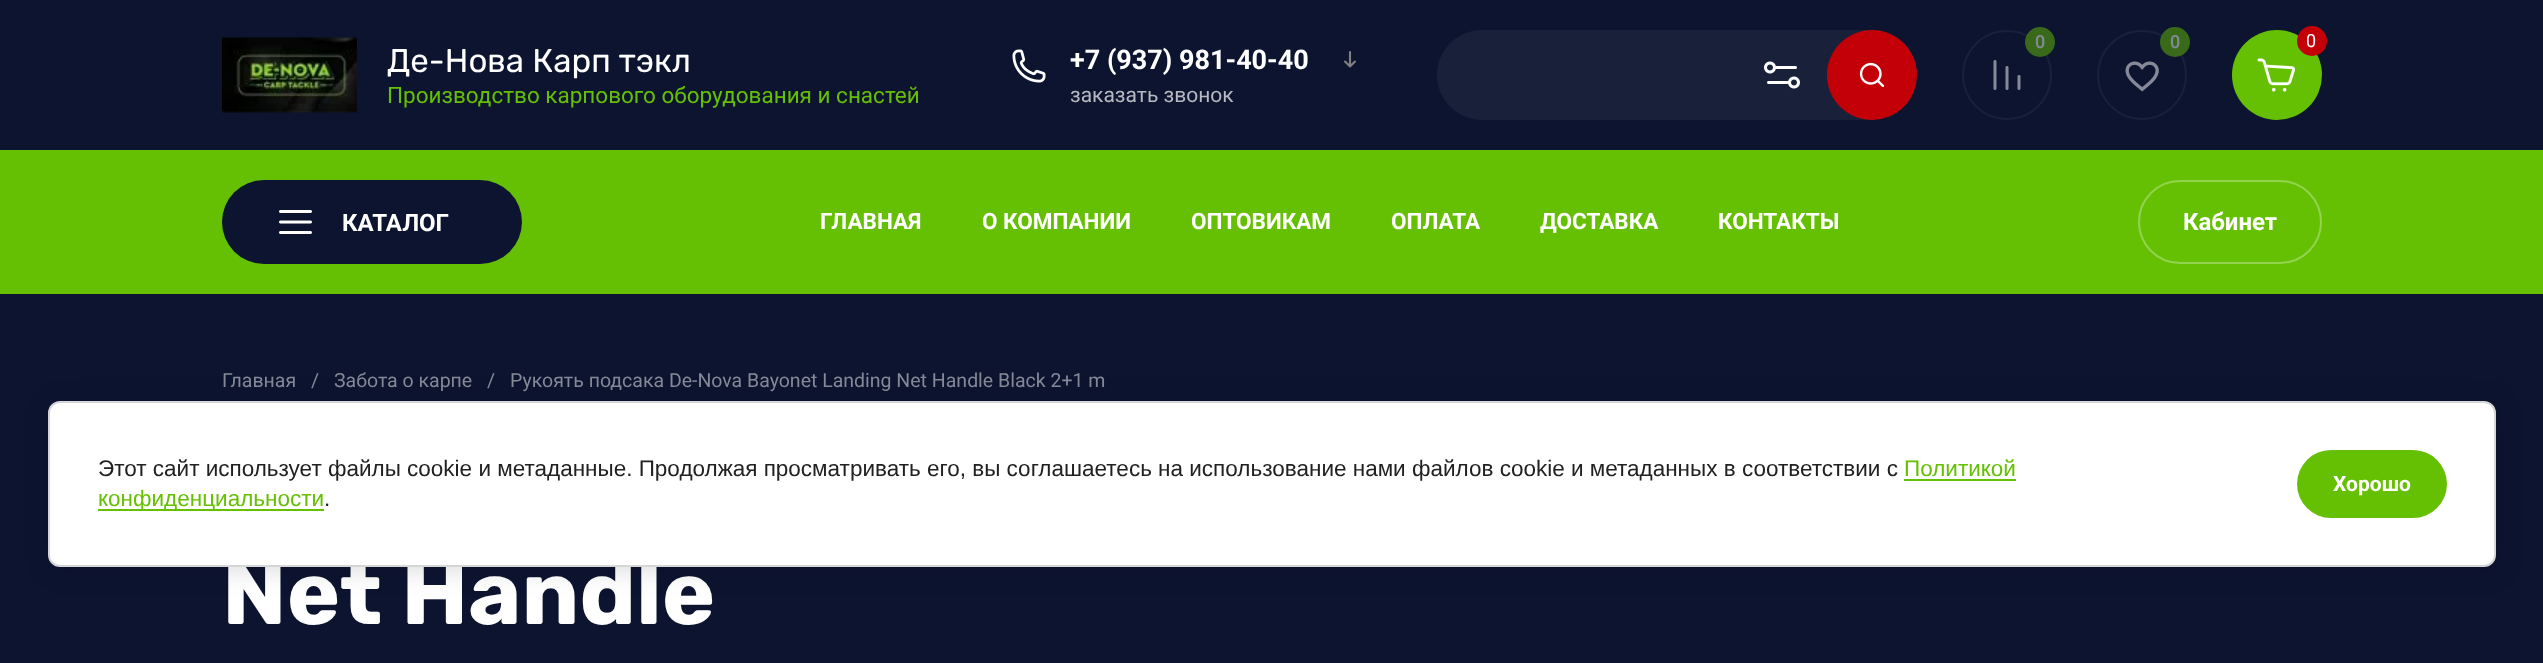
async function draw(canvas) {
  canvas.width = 2543;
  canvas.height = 663;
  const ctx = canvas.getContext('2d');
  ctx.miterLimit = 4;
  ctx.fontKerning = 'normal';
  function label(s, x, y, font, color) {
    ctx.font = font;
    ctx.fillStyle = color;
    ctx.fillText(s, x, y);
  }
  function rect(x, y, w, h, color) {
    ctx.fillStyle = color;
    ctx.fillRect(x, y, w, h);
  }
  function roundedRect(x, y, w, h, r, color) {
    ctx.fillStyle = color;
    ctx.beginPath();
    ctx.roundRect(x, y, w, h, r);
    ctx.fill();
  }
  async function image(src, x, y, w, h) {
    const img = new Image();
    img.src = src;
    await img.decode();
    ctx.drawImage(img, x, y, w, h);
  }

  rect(0, 0, 2543, 663, '#0d1430');
  await image('assets/img1.png', 222, 37, 135, 76);
  label('Де-Нова Карп тэкл', 387, 72, '33px Rubik', '#fff');
  label('Производство карпового оборудования и снастей', 387, 103, '22.5px Roboto', '#65c003');
  roundedRect(1437, 30, 480, 90, 45, '#19203a');
  await image('assets/img2.png', 1764, 61, 36, 28);
  ctx.fillStyle = '#c30008';
  ctx.beginPath();
  ctx.arc(1872, 75, 45, 0, 2 * Math.PI);
  ctx.fill();
  await image('assets/img3.png', 1859, 62, 26, 26);
  ctx.beginPath();
  ctx.arc(2007, 75, 44, 0, 2 * Math.PI);
  ctx.strokeStyle = '#19203a';
  ctx.lineWidth = 2;
  ctx.stroke();
  ctx.fillStyle = '#396a1a';
  ctx.beginPath();
  ctx.arc(2040, 42, 15, 0, 2 * Math.PI);
  ctx.fill();
  label('0', 2035, 48, '500 18px Roboto', '#868a98');
  await image('assets/img4.png', 1993, 60, 28, 30);
  ctx.beginPath();
  ctx.arc(2142, 75, 44, 0, 2 * Math.PI);
  ctx.stroke();
  ctx.fillStyle = '#396a1a';
  ctx.beginPath();
  ctx.arc(2175, 42, 15, 0, 2 * Math.PI);
  ctx.fill();
  label('0', 2170, 48, '500 18px Roboto', '#868a98');
  await image('assets/img5.png', 2125, 61, 34, 31);
  ctx.fillStyle = '#65c003';
  ctx.beginPath();
  ctx.arc(2277, 75, 45, 0, 2 * Math.PI);
  ctx.fill();
  ctx.fillStyle = '#c30008';
  ctx.beginPath();
  ctx.arc(2312, 41, 15, 0, 2 * Math.PI);
  ctx.fill();
  label('0', 2306, 47, '18px Roboto', '#fff');
  await image('assets/img6.png', 2257, 58, 38, 34);
  await image('assets/img7.png', 1012, 49, 34, 34);
  label('+7 (937) 981-40-40', 1070, 69, 'bold 27px Roboto', '#fff');
  await image('assets/img8.png', 1344, 51, 12, 17);
  label('заказать звонок', 1070, 102, '21px Roboto', '#b6b9c1');
  rect(0, 150, 2543, 144, '#65c003');
  roundedRect(222, 180, 300, 84, 42, '#0d1430');
  await image('assets/img9.png', 279, 210, 33, 24);
  label('КАТАЛОГ', 342, 231, 'bold 24px Roboto', '#fff');
  label('ГЛАВНАЯ', 820, 229, 'bold 22.5px Roboto', '#fff');
  label('О КОМПАНИИ', 982, 229, 'bold 22.5px Roboto', '#fff');
  label('ОПТОВИКАМ', 1191, 229, 'bold 22.5px Roboto', '#fff');
  label('ОПЛАТА', 1391, 229, 'bold 22.5px Roboto', '#fff');
  label('ДОСТАВКА', 1540, 229, 'bold 22.5px Roboto', '#fff');
  label('КОНТАКТЫ', 1718, 229, 'bold 22.5px Roboto', '#fff');
  ctx.beginPath();
  ctx.roundRect(2139, 181, 182, 82, 41);
  ctx.strokeStyle = '#93d34f';
  ctx.stroke();
  label('Кабинет', 2183, 230, 'bold 24px Roboto', '#fff');
  label('Главная', 222, 387, '19.5px Roboto', '#868a98');
  label('/', 311, 387, '19.5px Roboto', '#868a98');
  label('Забота о карпе', 334, 387, '19.5px Roboto', '#868a98');
  label('/', 487, 387, '19.5px Roboto', '#868a98');
  label('Рукоять подсака De-Nova Bayonet Landing Net Handle Black 2+1 m', 510, 387, '19.5px Roboto', '#868a98');
  label('Net Handle', 222, 624, 'bold 90px Rubik', '#fff');
  ctx.fillStyle = '#00000024';
  ctx.filter = 'blur(13.5px)';
  ctx.beginPath();
  ctx.roundRect(51, 404, 2448, 166, 12);
  ctx.fill();
  ctx.filter = 'none';
  ctx.fillStyle = '#fff';
  ctx.beginPath();
  ctx.roundRect(49, 402, 2446, 164, 11);
  ctx.fill();
  ctx.strokeStyle = '#d6d6d6';
  ctx.stroke();
  label('Этот сайт использует файлы cookie и метаданные. Продолжая просматривать его, вы соглашаетесь на использование нами файлов cookie и метаданных в соответствии с', 98, 476, '22.5px Liberation Sans', '#212121');
  label('Политикой', 1904, 476, '22.5px Liberation Sans', '#65c003');
  rect(1904, 479, 112, 2, '#65c003');
  rect(98, 509, 226, 2, '#65c003');
  label('конфиденциальности', 98, 506, '22.5px Liberation Sans', '#65c003');
  label('.', 324, 506, '22.5px Liberation Sans', '#212121');
  roundedRect(2297, 450, 150, 68, 34, '#65c003');
  label('Хорошо', 2333, 491, 'bold 21px Roboto', '#fff');
}

draw(document.querySelector('canvas'));
